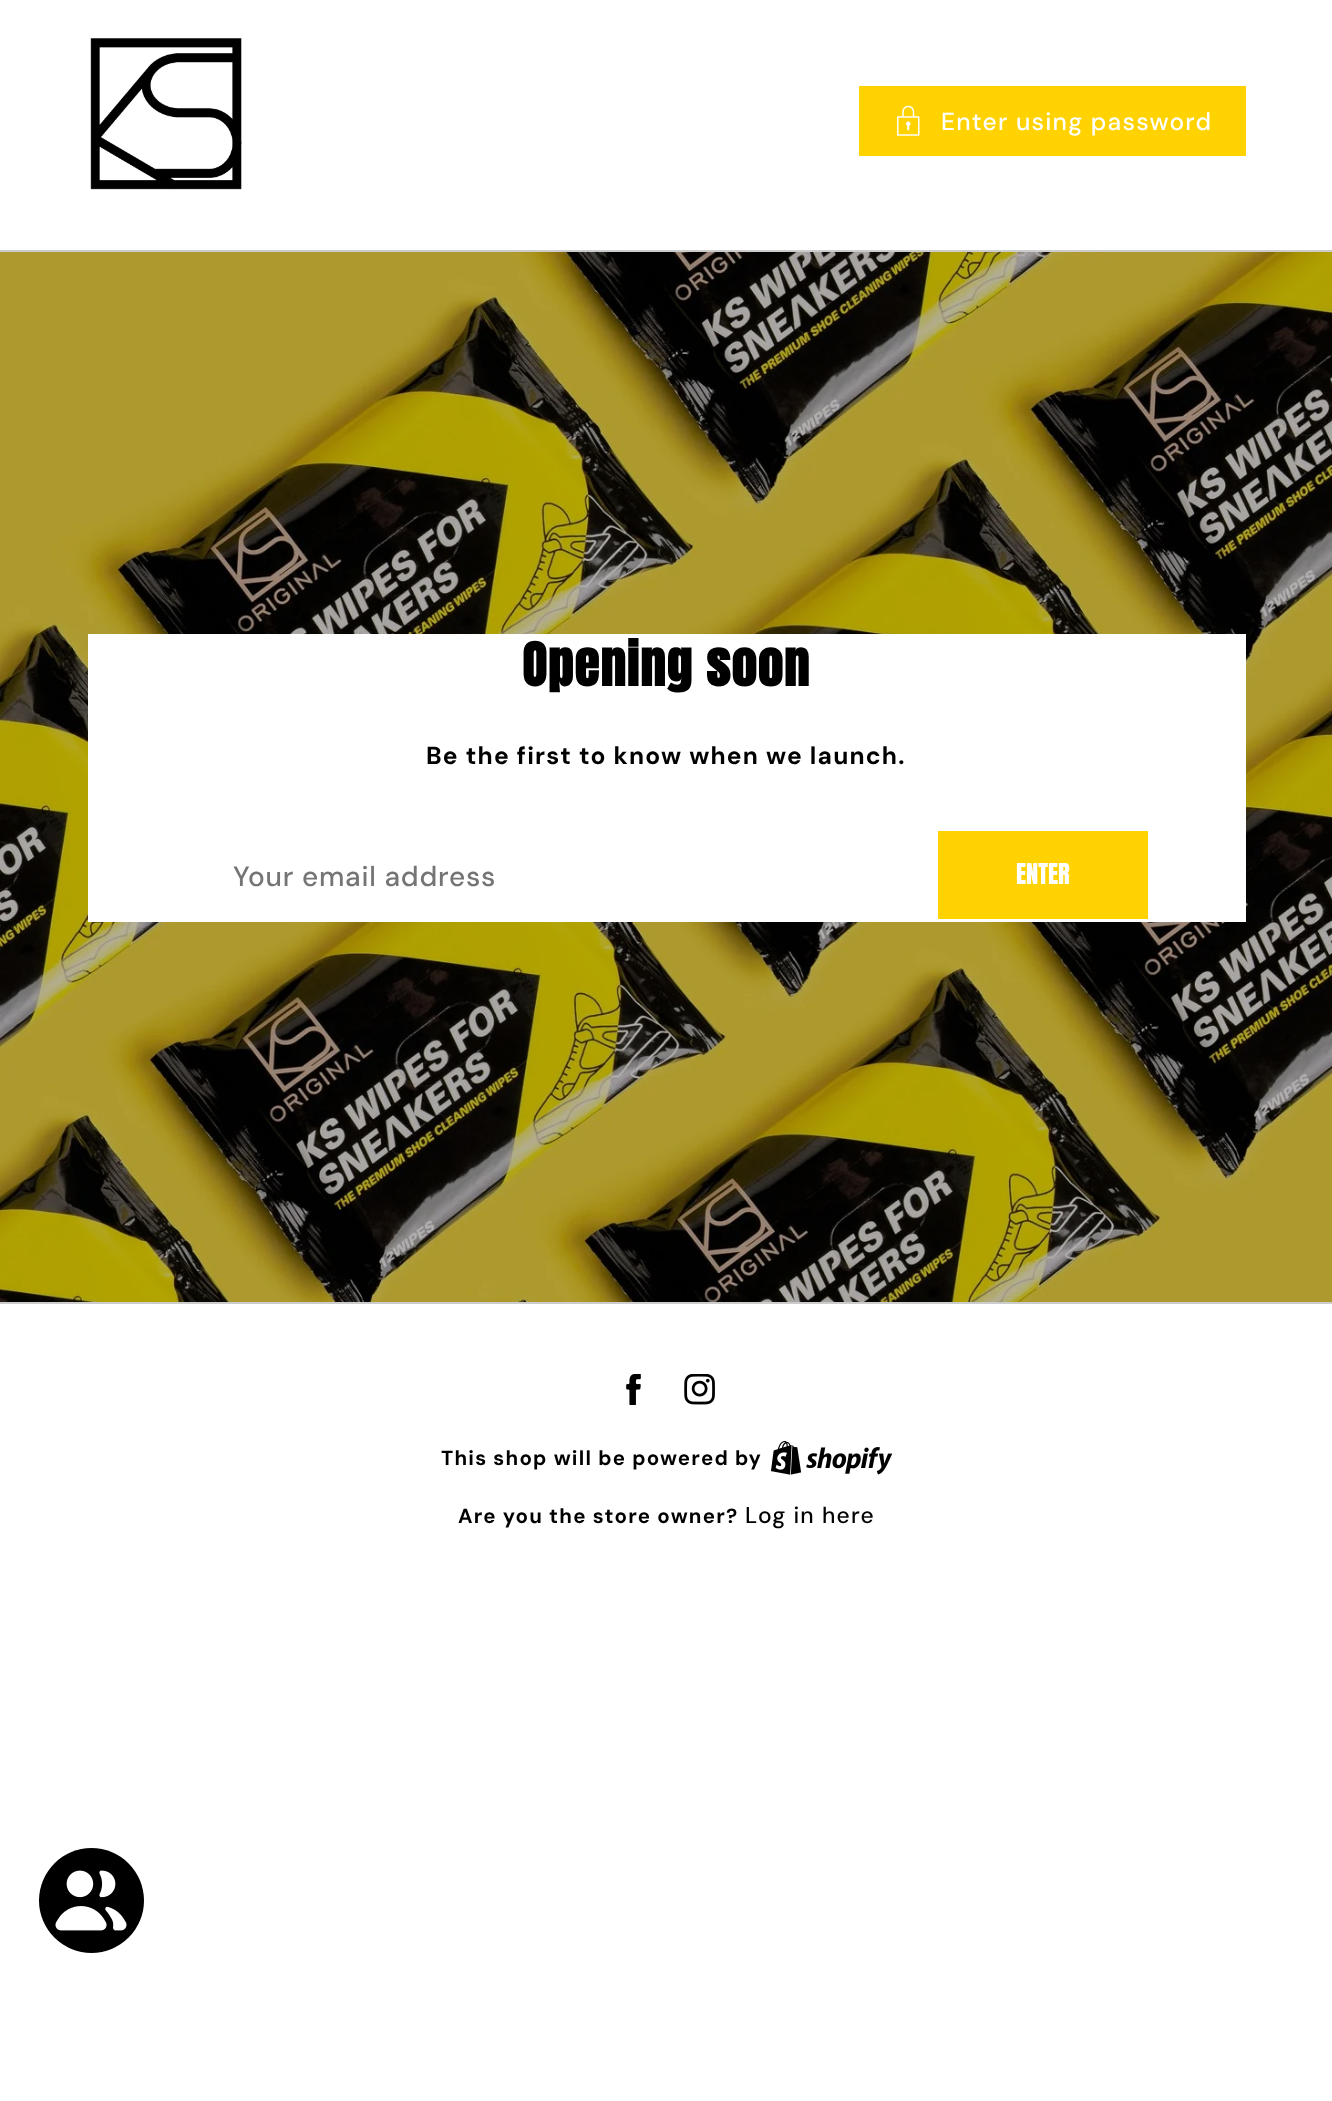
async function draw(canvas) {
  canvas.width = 1332;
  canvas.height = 2101;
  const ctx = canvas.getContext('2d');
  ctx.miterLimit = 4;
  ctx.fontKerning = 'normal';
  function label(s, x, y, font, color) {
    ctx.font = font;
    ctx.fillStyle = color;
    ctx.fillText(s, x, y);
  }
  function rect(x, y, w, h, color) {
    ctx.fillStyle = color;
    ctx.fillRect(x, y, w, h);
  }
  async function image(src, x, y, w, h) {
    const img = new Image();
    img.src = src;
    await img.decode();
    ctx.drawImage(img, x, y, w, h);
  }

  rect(0, 0, 1332, 2101, '#fff');
  await image('assets/img1.png', 90, 38, 152, 152);
  rect(859, 86, 387, 70, '#ffd200');
  await image('assets/img2.png', 897, 105, 23, 31);
  ctx.letterSpacing = '1.2px';
  label('Enter using password', 941, 130, '500 24.5px "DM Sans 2"', '#fff');
  rect(0, 250, 1332, 2, '#ccc');
  await image('assets/img3.png', 0, 252, 1332, 1050);
  rect(88, 634, 1158, 288, '#fff');
  label('Opening soon', 522, 686, 'bold 50.5px Anton', '#000');
  label('Be the first to know when we launch.', 426, 764, 'bold 24.5px "DM Sans 2"', '#000');
  ctx.letterSpacing = '0.75px';
  label('Your email address', 233, 886, '500 28px "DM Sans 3"', '#757575');
  rect(938, 831, 210, 88, '#ffd200');
  ctx.letterSpacing = '0px';
  label('ENTER', 1016, 884, '24.5px Anton', '#fff');
  rect(0, 1302, 1332, 2, '#ccc');
  await image('assets/img4.png', 626, 1374, 15, 31);
  await image('assets/img5.png', 684, 1374, 31, 31);
  ctx.letterSpacing = '1.2px';
  label('This shop will be powered by', 441, 1465, 'bold 20.4px DM Sans', '#000');
  await image('assets/img6.png', 771, 1440, 122, 35);
  label('Are you the store owner?', 458, 1523, 'bold 20.4px DM Sans', '#000');
  label('Log in here', 745, 1523, '500 22.75px DM Sans', '#000');
  ctx.beginPath();
  ctx.arc(91.5, 1900.5, 52.5, 0, 2 * Math.PI);
  ctx.fill();
  await image('assets/img7.png', 55, 1870, 72, 61);
}

draw(document.querySelector('canvas'));
